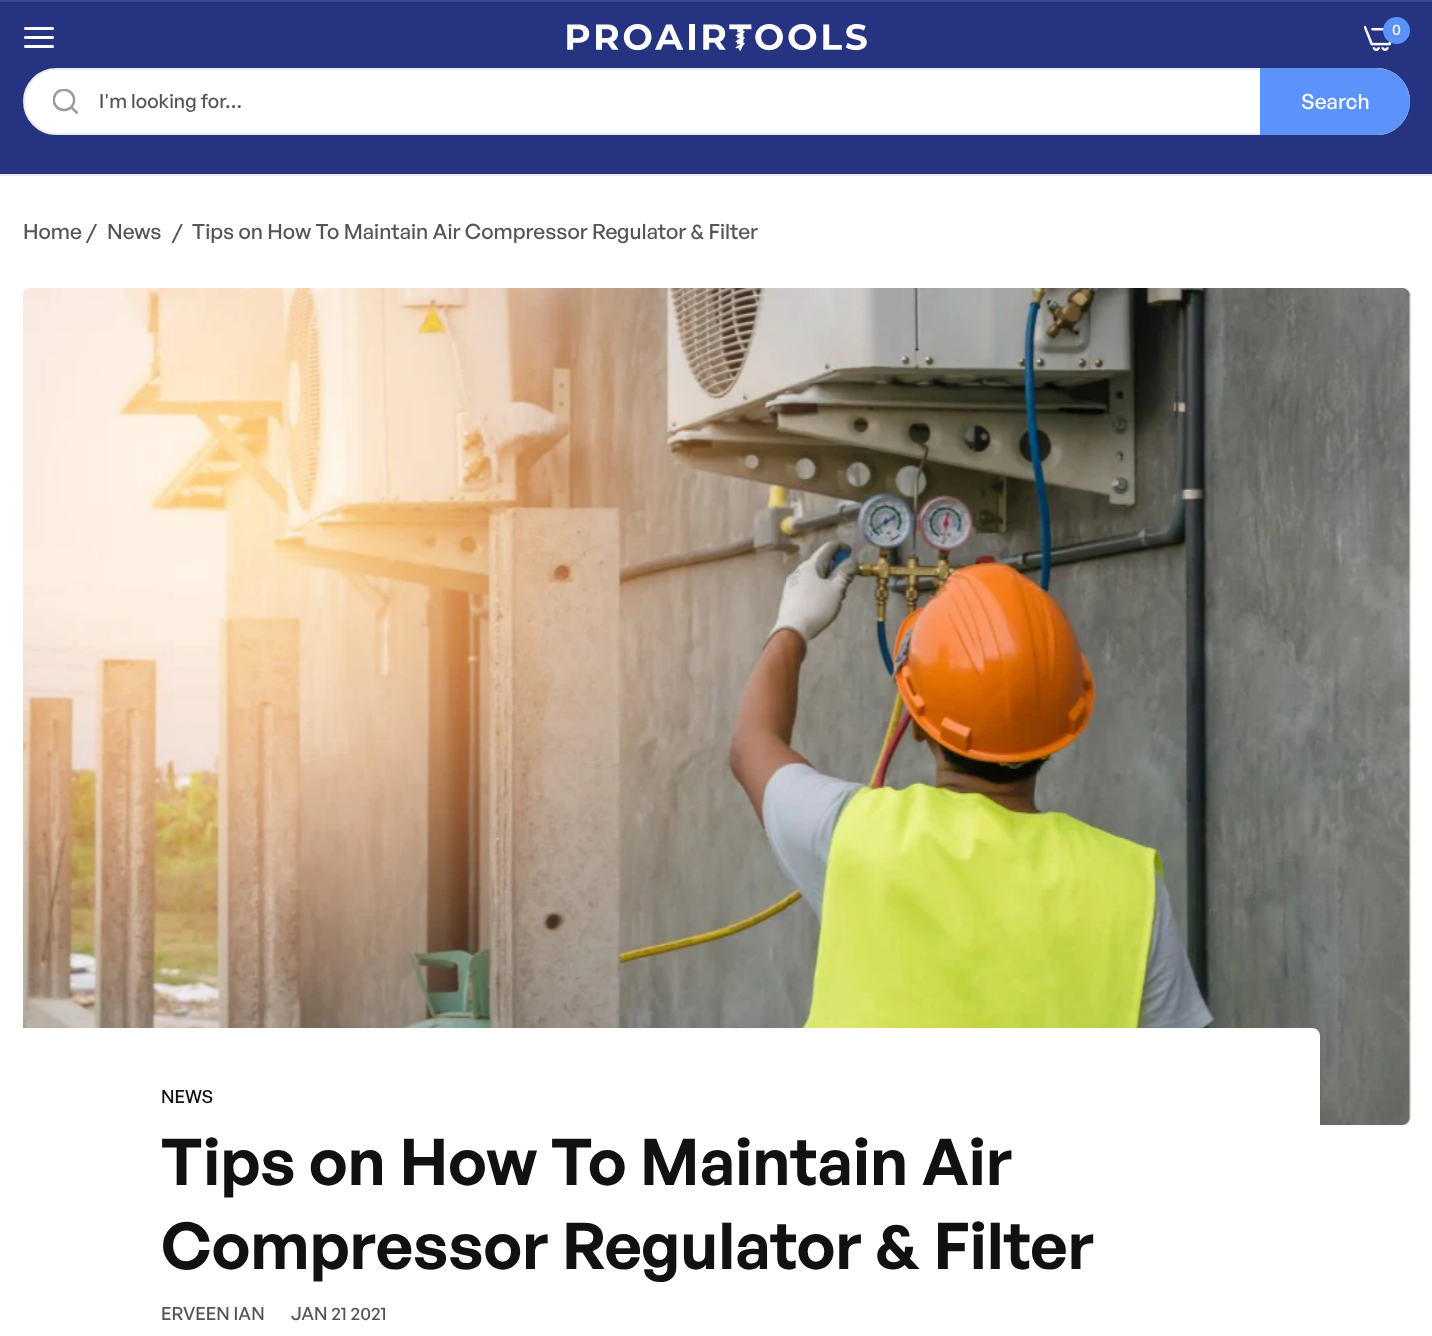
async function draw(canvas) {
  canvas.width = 1432;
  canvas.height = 1336;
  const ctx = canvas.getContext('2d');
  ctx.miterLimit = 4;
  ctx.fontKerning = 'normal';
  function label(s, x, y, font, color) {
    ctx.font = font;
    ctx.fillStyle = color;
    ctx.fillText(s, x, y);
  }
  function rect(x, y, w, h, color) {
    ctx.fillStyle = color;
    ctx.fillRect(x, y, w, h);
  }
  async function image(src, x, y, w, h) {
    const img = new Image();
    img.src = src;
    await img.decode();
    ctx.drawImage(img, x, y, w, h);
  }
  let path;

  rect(0, 0, 1432, 1336, '#fff');
  rect(0, 174, 1432, 2, '#ebebeb');
  rect(0, 0, 1432, 2, '#364a9b');
  rect(0, 2, 1432, 172, '#253380');
  await image('assets/img1.png', 24, 27, 30, 21);
  await image('assets/img2.png', 567, 24, 300, 27);
  await image('assets/img3.png', 1364, 26, 28, 25);
  ctx.fillStyle = '#5b93fb';
  ctx.beginPath();
  ctx.arc(1396.5, 30.5, 13.5, 0, 2 * Math.PI);
  ctx.fill();
  label('0', 1392, 35, '500 15px General Sans', '#fff');
  ctx.beginPath();
  ctx.roundRect(24, 69, 1385, 65, 32.5);
  ctx.fill();
  ctx.strokeStyle = '#ebebeb';
  ctx.lineWidth = 2;
  ctx.stroke();
  await image('assets/img4.png', 53, 89, 25, 25);
  label('I\'m looking for…', 99, 108, '500 19.5px General Sans', '#555');
  ctx.fillStyle = '#5b93fb';
  ctx.beginPath();
  ctx.roundRect(1260, 68, 150, 67, [0, 33.5, 33.5, 0]);
  ctx.fill();
  label('Search', 1301, 109, '500 21px General Sans', '#fff');
  label('Home /', 23, 239, '500 21px General Sans', '#555');
  label('News', 107, 239, '500 21px General Sans', '#555');
  label('/', 172, 239, '500 21px General Sans', '#555');
  label('Tips on How To Maintain Air Compressor Regulator & Filter', 192, 239, '500 21px General Sans', '#555');
  await image('assets/img5.png', 23, 288, 1388, 837);
  ctx.fillStyle = '#fff';
  path = new Path2D('M23 1028H1312C1316.5 1028 1320 1031.5 1320 1036V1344H23Z');
  ctx.fill(path);
  label('NEWS', 161, 1103, '500 18px General Sans', '#111');
  label('Tips on How To Maintain Air', 161, 1185, '600 64.5px General Sans', '#111');
  label('Compressor Regulator & Filter', 161, 1269, '600 64.5px General Sans', '#111');
  label('ERVEEN IAN', 161, 1320, '500 18px General Sans', '#555');
  label('JAN 21 2021', 291, 1320, '500 18px General Sans', '#555');
}

draw(document.querySelector('canvas'));
